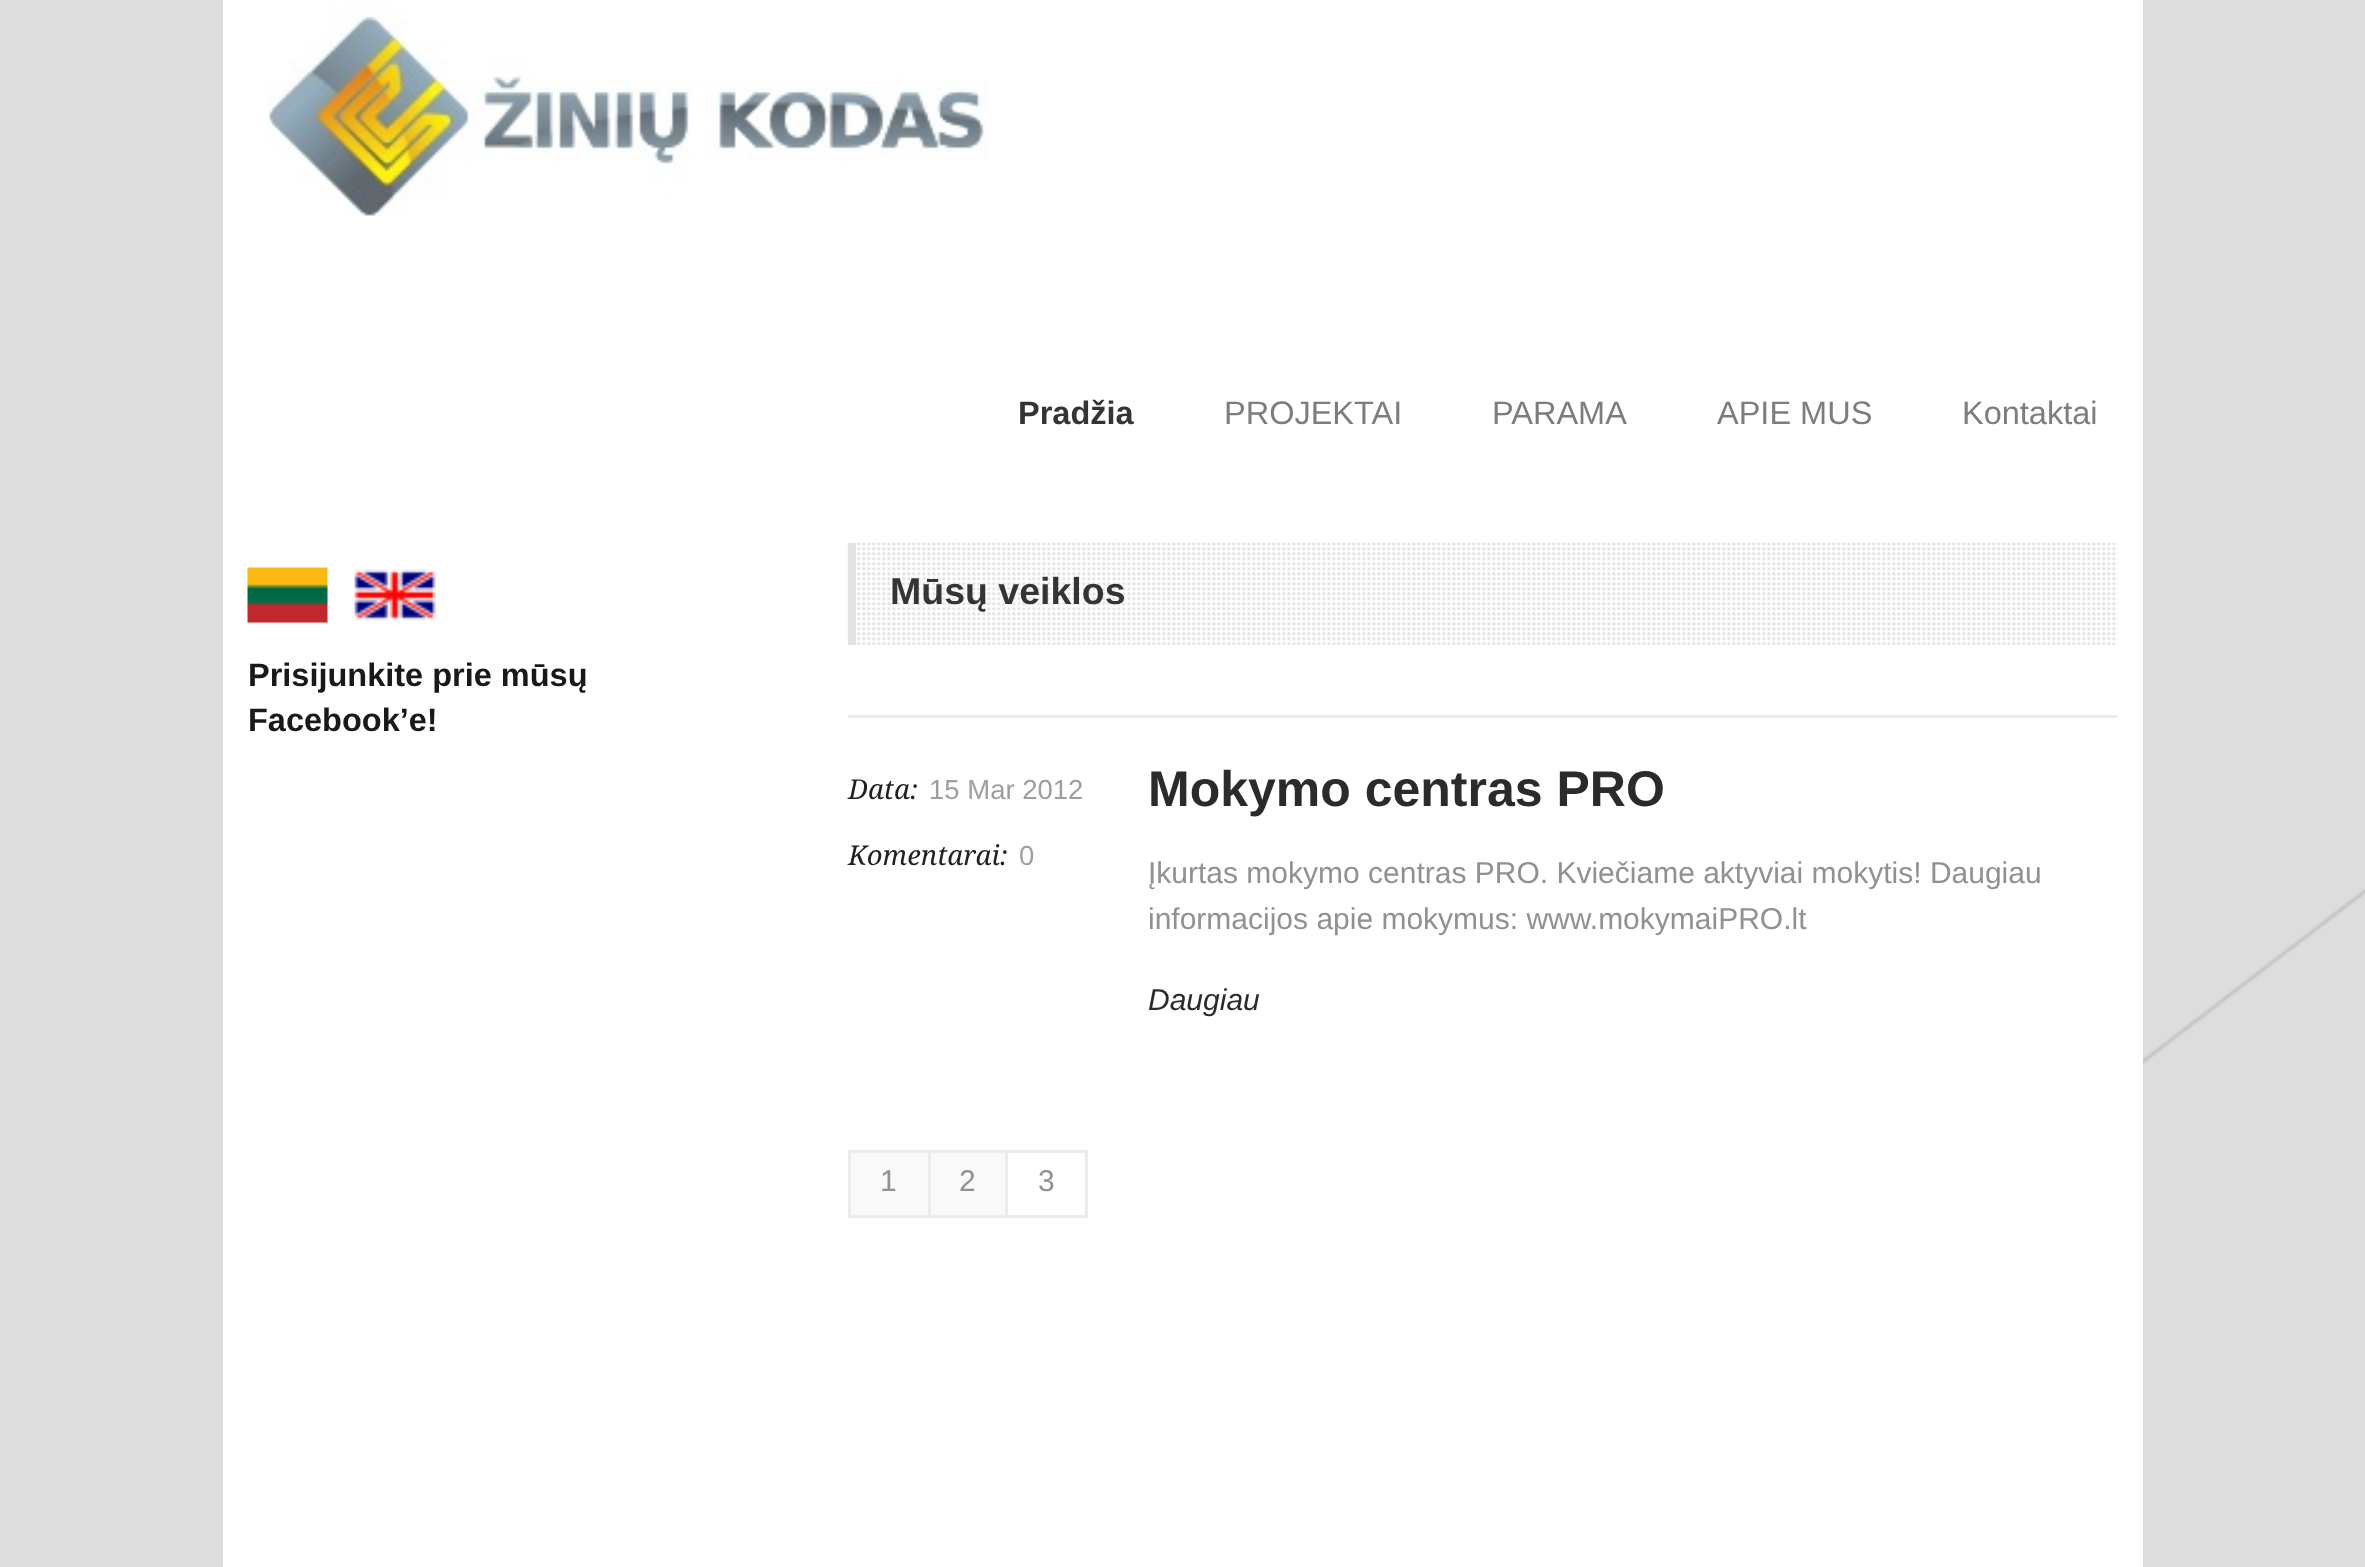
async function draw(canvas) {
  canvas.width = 2365;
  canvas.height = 1567;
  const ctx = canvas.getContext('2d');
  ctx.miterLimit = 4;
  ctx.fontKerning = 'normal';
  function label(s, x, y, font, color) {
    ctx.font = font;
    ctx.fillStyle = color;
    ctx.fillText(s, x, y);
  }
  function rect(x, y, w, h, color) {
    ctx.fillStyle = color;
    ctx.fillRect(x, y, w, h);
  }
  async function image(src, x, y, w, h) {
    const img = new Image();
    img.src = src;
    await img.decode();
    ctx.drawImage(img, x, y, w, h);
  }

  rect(0, 0, 2365, 1567, '#ddd');
  await image('assets/img1.png', 2143, 889, 222, 175);
  rect(223, 0, 1920, 1567, '#fff');
  await image('assets/img2.png', 267, 0, 720, 217);
  label('Pradžia', 1018, 424, 'bold 32.5px Liberation Sans', '#343434');
  label('PROJEKTAI', 1224, 424, '32.5px Liberation Sans', '#7d7d7d');
  label('PARAMA', 1492, 424, '32.5px Liberation Sans', '#7d7d7d');
  label('APIE MUS', 1717, 424, '32.5px Liberation Sans', '#7d7d7d');
  label('Kontaktai', 1962, 424, '32.5px Liberation Sans', '#7d7d7d');
  await image('assets/img3.png', 247, 567, 81, 56);
  await image('assets/img4.png', 354, 569, 82, 52);
  label('Prisijunkite prie mūsų', 248, 686, 'bold 32.5px Liberation Sans', '#191919');
  label('Facebook’e!', 248, 731, 'bold 32.5px Liberation Sans', '#191919');
  await image('assets/img5.png', 847, 542, 1271, 103);
  rect(848, 543, 8, 102, '#e3e3e3');
  label('Mūsų veiklos', 890, 604, 'bold 37.5px Liberation Sans', '#343434');
  rect(848, 715, 1270, 3, '#ececec');
  label('Data:', 848, 799, 'italic 27.5px Droid Serif', '#212121');
  label('15 Mar 2012', 929, 799, '27.5px Liberation Sans', '#9e9e9e');
  label('Komentarai:', 848, 865, 'italic 27.5px Droid Serif', '#212121');
  label('0', 1019, 865, '27.5px Liberation Sans', '#9e9e9e');
  label('Mokymo centras PRO', 1148, 806, 'bold 50px Liberation Sans', '#2b2b2b');
  label('Įkurtas mokymo centras PRO. Kviečiame aktyviai mokytis! Daugiau', 1148, 883, '30px Liberation Sans', '#919191');
  label('informacijos apie mokymus: www.mokymaiPRO.lt', 1148, 929, '30px Liberation Sans', '#919191');
  label('Daugiau', 1148, 1010, 'italic 30px Liberation Sans', '#2b2b2b');
  rect(851, 1153, 77, 62, '#f9f9f9');
  rect(848, 1150, 157, 3, '#ececec');
  rect(848, 1215, 157, 3, '#ececec');
  rect(848, 1150, 3, 68, '#ececec');
  label('1', 880, 1191, '30px Liberation Sans', '#919191');
  rect(931, 1153, 74, 62, '#f9f9f9');
  rect(928, 1150, 3, 68, '#ececec');
  label('2', 959, 1191, '30px Liberation Sans', '#919191');
  ctx.strokeStyle = '#ececec';
  ctx.lineWidth = 3;
  ctx.strokeRect(1006.5, 1151.5, 80, 65);
  label('3', 1038, 1191, '30px Liberation Sans', '#919191');
}

draw(document.querySelector('canvas'));
